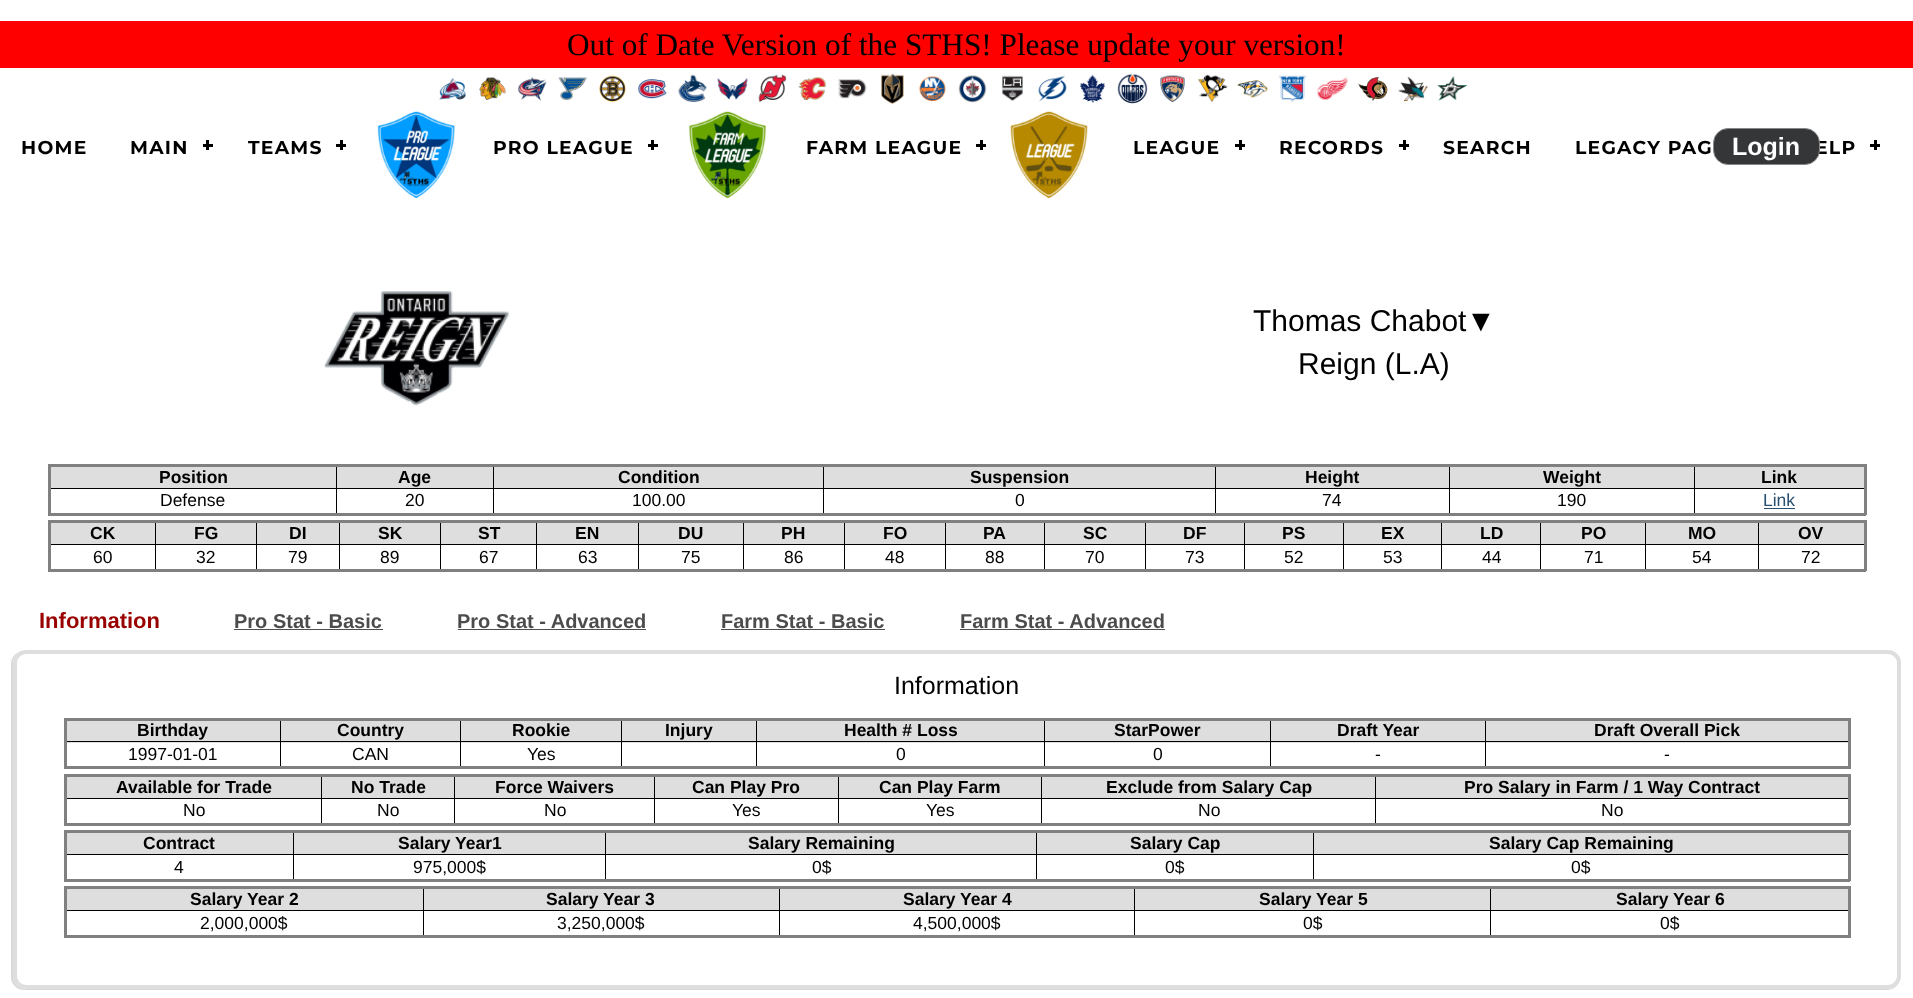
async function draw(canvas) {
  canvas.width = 1913;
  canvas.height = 998;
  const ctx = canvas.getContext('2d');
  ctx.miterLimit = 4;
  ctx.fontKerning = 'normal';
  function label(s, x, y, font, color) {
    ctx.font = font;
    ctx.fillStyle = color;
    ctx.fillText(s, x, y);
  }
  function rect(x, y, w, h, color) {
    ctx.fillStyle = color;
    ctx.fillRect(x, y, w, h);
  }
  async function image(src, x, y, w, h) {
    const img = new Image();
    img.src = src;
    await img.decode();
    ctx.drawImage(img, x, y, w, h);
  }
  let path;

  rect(0, 0, 1913, 998, '#fff');
  rect(0, 21, 1913, 47, '#f00');
  label('Out of Date Version of the STHS! Please update your version!', 567, 55, '31.25px Liberation Serif', '#000');
  await image('assets/img1.png', 439, 78, 27, 22);
  await image('assets/img2.png', 479, 77, 27, 23);
  await image('assets/img3.png', 517, 76, 30, 25);
  await image('assets/img4.png', 558, 77, 29, 23);
  await image('assets/img5.png', 599, 75, 27, 27);
  await image('assets/img6.png', 638, 79, 29, 20);
  await image('assets/img7.png', 678, 74, 29, 29);
  await image('assets/img8.png', 717, 78, 31, 22);
  await image('assets/img9.png', 758, 74, 29, 28);
  await image('assets/img10.png', 798, 77, 28, 23);
  await image('assets/img11.png', 838, 79, 29, 20);
  await image('assets/img12.png', 881, 73, 23, 31);
  await image('assets/img13.png', 919, 75, 27, 27);
  await image('assets/img14.png', 958, 75, 29, 28);
  await image('assets/img15.png', 1001, 75, 22, 26);
  await image('assets/img16.png', 1038, 75, 29, 27);
  await image('assets/img17.png', 1079, 74, 27, 29);
  await image('assets/img18.png', 1117, 73, 31, 31);
  await image('assets/img19.png', 1160, 75, 25, 27);
  await image('assets/img20.png', 1198, 74, 30, 28);
  await image('assets/img21.png', 1237, 79, 31, 19);
  await image('assets/img22.png', 1278, 75, 29, 27);
  await image('assets/img23.png', 1317, 77, 31, 23);
  await image('assets/img24.png', 1358, 77, 30, 24);
  await image('assets/img25.png', 1398, 76, 30, 26);
  await image('assets/img26.png', 1437, 76, 31, 25);
  ctx.letterSpacing = '1.25px';
  label('ELP', 1815, 154, 'bold 18.75px Montserrat', '#000');
  ctx.fillStyle = '#343638';
  ctx.beginPath();
  ctx.roundRect(1713.5, 128.5, 106, 36, 14.5);
  ctx.fill();
  ctx.strokeStyle = '#888';
  ctx.stroke();
  ctx.letterSpacing = '0px';
  label('Login', 1732, 155, 'bold 25px Liberation Sans', '#fff');
  ctx.letterSpacing = '1.25px';
  label('HOME', 21, 154, 'bold 18.75px Montserrat', '#000');
  label('MAIN', 130, 154, 'bold 18.75px Montserrat', '#000');
  rect(206, 140, 3, 10, '#000');
  rect(203, 144, 10, 3, '#000');
  label('TEAMS', 248, 154, 'bold 18.75px Montserrat', '#000');
  rect(340, 140, 3, 10, '#000');
  rect(336, 144, 10, 3, '#000');
  await image('assets/img27.png', 377, 111, 78, 88);
  label('PRO LEAGUE', 493, 154, 'bold 18.75px Montserrat', '#000');
  rect(651, 140, 3, 10, '#000');
  rect(648, 144, 10, 3, '#000');
  await image('assets/img28.png', 688, 111, 79, 88);
  label('FARM LEAGUE', 806, 154, 'bold 18.75px Montserrat', '#000');
  rect(980, 140, 3, 10, '#000');
  rect(976, 144, 10, 3, '#000');
  await image('assets/img29.png', 1010, 111, 78, 88);
  label('LEAGUE', 1133, 154, 'bold 18.75px Montserrat', '#000');
  rect(1239, 140, 3, 10, '#000');
  rect(1235, 144, 10, 3, '#000');
  label('RECORDS', 1279, 154, 'bold 18.75px Montserrat', '#000');
  rect(1403, 140, 3, 10, '#000');
  rect(1399, 144, 10, 3, '#000');
  label('SEARCH', 1443, 154, 'bold 18.75px Montserrat', '#000');
  label('LEGACY PAG', 1575, 154, 'bold 18.75px Montserrat', '#000');
  rect(1874, 140, 3, 10, '#000');
  rect(1870, 144, 10, 3, '#000');
  await image('assets/img30.png', 324, 291, 185, 115);
  ctx.letterSpacing = '0px';
  label('Thomas Chabot', 1253, 331, '30px Liberation Sans', '#000');
  label('▼', 1466, 331, '30px Liberation Sans', '#000');
  label('Reign (L.A)', 1298, 374, '30px Liberation Sans', '#000');
  rect(1694, 488, 171, 1, '#000');
  rect(1694, 488, 1, 27, '#000');
  rect(1449, 488, 246, 1, '#000');
  rect(1449, 488, 1, 27, '#000');
  rect(1215, 488, 235, 1, '#000');
  rect(1215, 488, 1, 27, '#000');
  rect(823, 488, 393, 1, '#000');
  rect(823, 488, 1, 27, '#000');
  rect(493, 488, 331, 1, '#000');
  rect(493, 488, 1, 27, '#000');
  rect(336, 488, 158, 1, '#000');
  rect(336, 488, 1, 27, '#000');
  rect(49, 488, 289, 1, '#000');
  rect(336, 465, 1, 24, '#000');
  rect(493, 465, 1, 24, '#000');
  rect(823, 465, 1, 24, '#000');
  rect(1215, 465, 1, 24, '#000');
  rect(1449, 465, 1, 24, '#000');
  rect(1694, 465, 1, 24, '#000');
  rect(48, 464, 1818, 3, '#808080');
  rect(1864, 464, 3, 51, '#808080');
  rect(48, 513, 1818, 3, '#808080');
  rect(48, 464, 3, 51, '#808080');
  rect(51, 467, 285, 21, '#dedede');
  label('Position', 159, 483, 'bold 17.5px Liberation Sans', '#000');
  rect(337, 467, 156, 21, '#dedede');
  label('Age', 398, 483, 'bold 17.5px Liberation Sans', '#000');
  rect(494, 467, 329, 21, '#dedede');
  label('Condition', 618, 483, 'bold 17.5px Liberation Sans', '#000');
  rect(824, 467, 391, 21, '#dedede');
  label('Suspension', 970, 483, 'bold 17.5px Liberation Sans', '#000');
  rect(1216, 467, 233, 21, '#dedede');
  label('Height', 1305, 483, 'bold 17.5px Liberation Sans', '#000');
  rect(1450, 467, 244, 21, '#dedede');
  label('Weight', 1543, 483, 'bold 17.5px Liberation Sans', '#000');
  rect(1695, 467, 169, 21, '#dedede');
  label('Link', 1761, 483, 'bold 17.5px Liberation Sans', '#000');
  label('Defense', 160, 506, '17.5px Liberation Sans', '#000');
  label('20', 405, 506, '17.5px Liberation Sans', '#000');
  label('100.00', 632, 506, '17.5px Liberation Sans', '#000');
  label('0', 1015, 506, '17.5px Liberation Sans', '#000');
  label('74', 1322, 506, '17.5px Liberation Sans', '#000');
  label('190', 1557, 506, '17.5px Liberation Sans', '#000');
  label('Link', 1763, 506, '17.5px Liberation Sans', '#274f70');
  rect(1764, 508, 31, 1, '#274f70');
  rect(1758, 544, 107, 1, '#000');
  rect(1758, 544, 1, 27, '#000');
  rect(1645, 544, 114, 1, '#000');
  rect(1645, 544, 1, 27, '#000');
  rect(1540, 544, 106, 1, '#000');
  rect(1540, 544, 1, 27, '#000');
  rect(1441, 544, 100, 1, '#000');
  rect(1441, 544, 1, 27, '#000');
  rect(1343, 544, 100, 1, '#000');
  rect(1343, 544, 1, 27, '#000');
  rect(1244, 544, 100, 1, '#000');
  rect(1244, 544, 1, 27, '#000');
  rect(1145, 544, 100, 1, '#000');
  rect(1145, 544, 1, 27, '#000');
  rect(1044, 544, 102, 1, '#000');
  rect(1044, 544, 1, 27, '#000');
  rect(945, 544, 100, 1, '#000');
  rect(945, 544, 1, 27, '#000');
  rect(844, 544, 102, 1, '#000');
  rect(844, 544, 1, 27, '#000');
  rect(743, 544, 102, 1, '#000');
  rect(743, 544, 1, 27, '#000');
  rect(638, 544, 106, 1, '#000');
  rect(638, 544, 1, 27, '#000');
  rect(536, 544, 103, 1, '#000');
  rect(536, 544, 1, 27, '#000');
  rect(440, 544, 98, 1, '#000');
  rect(440, 544, 1, 27, '#000');
  rect(339, 544, 102, 1, '#000');
  rect(339, 544, 1, 27, '#000');
  rect(256, 544, 84, 1, '#000');
  rect(256, 544, 1, 27, '#000');
  rect(155, 544, 103, 1, '#000');
  rect(155, 544, 1, 27, '#000');
  rect(49, 544, 107, 1, '#000');
  rect(155, 521, 1, 24, '#000');
  rect(156, 523, 183, 21, '#dedede');
  rect(256, 521, 1, 24, '#000');
  rect(339, 521, 1, 24, '#000');
  rect(440, 521, 1, 24, '#000');
  rect(536, 521, 1, 24, '#000');
  rect(638, 521, 1, 24, '#000');
  rect(743, 521, 1, 24, '#000');
  rect(844, 521, 1, 24, '#000');
  rect(945, 521, 1, 24, '#000');
  rect(1044, 521, 1, 24, '#000');
  rect(1145, 521, 1, 24, '#000');
  rect(1244, 521, 1, 24, '#000');
  rect(1343, 521, 1, 24, '#000');
  rect(1344, 523, 196, 21, '#dedede');
  rect(1441, 521, 1, 24, '#000');
  rect(1540, 521, 1, 24, '#000');
  rect(1645, 521, 1, 24, '#000');
  rect(1758, 521, 1, 24, '#000');
  rect(48, 520, 1818, 3, '#808080');
  rect(1864, 520, 3, 51, '#808080');
  rect(48, 569, 1818, 3, '#808080');
  rect(48, 520, 3, 51, '#808080');
  rect(51, 523, 104, 21, '#dedede');
  label('CK', 90, 539, 'bold 17.5px Liberation Sans', '#000');
  label('FG', 194, 539, 'bold 17.5px Liberation Sans', '#000');
  label('DI', 289, 539, 'bold 17.5px Liberation Sans', '#000');
  rect(340, 523, 100, 21, '#dedede');
  label('SK', 378, 539, 'bold 17.5px Liberation Sans', '#000');
  rect(441, 523, 95, 21, '#dedede');
  label('ST', 478, 539, 'bold 17.5px Liberation Sans', '#000');
  rect(537, 523, 101, 21, '#dedede');
  label('EN', 575, 539, 'bold 17.5px Liberation Sans', '#000');
  rect(639, 523, 104, 21, '#dedede');
  label('DU', 678, 539, 'bold 17.5px Liberation Sans', '#000');
  rect(744, 523, 100, 21, '#dedede');
  label('PH', 781, 539, 'bold 17.5px Liberation Sans', '#000');
  rect(845, 523, 100, 21, '#dedede');
  label('FO', 883, 539, 'bold 17.5px Liberation Sans', '#000');
  rect(946, 523, 98, 21, '#dedede');
  label('PA', 983, 539, 'bold 17.5px Liberation Sans', '#000');
  rect(1045, 523, 100, 21, '#dedede');
  label('SC', 1083, 539, 'bold 17.5px Liberation Sans', '#000');
  rect(1146, 523, 98, 21, '#dedede');
  label('DF', 1183, 539, 'bold 17.5px Liberation Sans', '#000');
  rect(1245, 523, 98, 21, '#dedede');
  label('PS', 1282, 539, 'bold 17.5px Liberation Sans', '#000');
  label('EX', 1381, 539, 'bold 17.5px Liberation Sans', '#000');
  label('LD', 1480, 539, 'bold 17.5px Liberation Sans', '#000');
  rect(1541, 523, 104, 21, '#dedede');
  label('PO', 1581, 539, 'bold 17.5px Liberation Sans', '#000');
  rect(1646, 523, 112, 21, '#dedede');
  label('MO', 1688, 539, 'bold 17.5px Liberation Sans', '#000');
  rect(1759, 523, 105, 21, '#dedede');
  label('OV', 1798, 539, 'bold 17.5px Liberation Sans', '#000');
  label('60', 93, 563, '17.5px Liberation Sans', '#000');
  label('32', 196, 563, '17.5px Liberation Sans', '#000');
  label('79', 288, 563, '17.5px Liberation Sans', '#000');
  label('89', 380, 563, '17.5px Liberation Sans', '#000');
  label('67', 479, 563, '17.5px Liberation Sans', '#000');
  label('63', 578, 563, '17.5px Liberation Sans', '#000');
  label('75', 681, 563, '17.5px Liberation Sans', '#000');
  label('86', 784, 563, '17.5px Liberation Sans', '#000');
  label('48', 885, 563, '17.5px Liberation Sans', '#000');
  label('88', 985, 563, '17.5px Liberation Sans', '#000');
  label('70', 1085, 563, '17.5px Liberation Sans', '#000');
  label('73', 1185, 563, '17.5px Liberation Sans', '#000');
  label('52', 1284, 563, '17.5px Liberation Sans', '#000');
  label('53', 1383, 563, '17.5px Liberation Sans', '#000');
  label('44', 1482, 563, '17.5px Liberation Sans', '#000');
  label('71', 1584, 563, '17.5px Liberation Sans', '#000');
  label('54', 1692, 563, '17.5px Liberation Sans', '#000');
  label('72', 1801, 563, '17.5px Liberation Sans', '#000');
  label('Information', 39, 628, 'bold 22px Liberation Sans', '#900');
  label('Pro Stat - Basic', 234, 628, 'bold 20px Liberation Sans', '#4c4c4c');
  rect(234, 629, 149, 1, '#4c4c4c');
  label('Pro Stat - Advanced', 457, 628, 'bold 20px Liberation Sans', '#4c4c4c');
  rect(458, 629, 188, 1, '#4c4c4c');
  label('Farm Stat - Basic', 721, 628, 'bold 20px Liberation Sans', '#4c4c4c');
  rect(721, 629, 164, 1, '#4c4c4c');
  label('Farm Stat - Advanced', 960, 628, 'bold 20px Liberation Sans', '#4c4c4c');
  rect(960, 629, 205, 1, '#4c4c4c');
  ctx.save();
  path = new Path2D('M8 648H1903V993H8ZM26 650H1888C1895 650 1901 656 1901 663V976C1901 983 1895 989 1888 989H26C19 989 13 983 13 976V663C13 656 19 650 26 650Z');
  ctx.clip(path, 'evenodd');
  ctx.fillStyle = '#00000026';
  ctx.filter = 'blur(0.5px)';
  ctx.beginPath();
  ctx.roundRect(11, 651, 1889, 339, 13);
  ctx.fill();
  ctx.filter = 'none';
  ctx.restore();
  ctx.beginPath();
  ctx.roundRect(15, 652, 1884, 335, 11);
  ctx.strokeStyle = '#dedede';
  ctx.lineWidth = 4;
  ctx.stroke();
  label('Information', 894, 694, '25px Liberation Sans', '#000');
  rect(67, 721, 213, 22, '#dedede');
  rect(281, 721, 179, 22, '#dedede');
  rect(461, 721, 160, 22, '#dedede');
  rect(622, 721, 422, 22, '#dedede');
  rect(1045, 721, 225, 22, '#dedede');
  rect(1271, 721, 214, 22, '#dedede');
  rect(1486, 721, 362, 22, '#dedede');
  rect(1485, 741, 365, 1, '#000');
  rect(1485, 741, 1, 28, '#000');
  rect(1270, 741, 216, 1, '#000');
  rect(1270, 741, 1, 28, '#000');
  rect(1044, 741, 227, 1, '#000');
  rect(1044, 741, 1, 28, '#000');
  rect(756, 741, 289, 1, '#000');
  rect(756, 741, 1, 28, '#000');
  rect(621, 741, 137, 1, '#000');
  rect(621, 741, 1, 28, '#000');
  rect(460, 741, 163, 1, '#000');
  rect(460, 741, 1, 28, '#000');
  rect(280, 741, 181, 1, '#000');
  rect(280, 741, 1, 28, '#000');
  rect(64, 741, 217, 1, '#000');
  rect(280, 719, 1, 24, '#000');
  rect(460, 719, 1, 24, '#000');
  rect(621, 719, 1, 24, '#000');
  rect(756, 719, 1, 24, '#000');
  rect(1044, 719, 1, 24, '#000');
  rect(1270, 719, 1, 24, '#000');
  rect(1485, 719, 1, 24, '#000');
  rect(64, 718, 1786, 3, '#808080');
  rect(1848, 718, 3, 51, '#808080');
  rect(64, 766, 1786, 3, '#808080');
  rect(64, 718, 3, 51, '#808080');
  label('Birthday', 137, 736, 'bold 17.5px Liberation Sans', '#000');
  label('Country', 337, 736, 'bold 17.5px Liberation Sans', '#000');
  label('Rookie', 512, 736, 'bold 17.5px Liberation Sans', '#000');
  label('Injury', 665, 736, 'bold 17.5px Liberation Sans', '#000');
  label('Health # Loss', 844, 736, 'bold 17.5px Liberation Sans', '#000');
  label('StarPower', 1114, 736, 'bold 17.5px Liberation Sans', '#000');
  label('Draft Year', 1337, 736, 'bold 17.5px Liberation Sans', '#000');
  label('Draft Overall Pick', 1594, 736, 'bold 17.5px Liberation Sans', '#000');
  label('1997-01-01', 128, 760, '17.5px Liberation Sans', '#000');
  label('CAN', 352, 760, '17.5px Liberation Sans', '#000');
  label('Yes', 527, 760, '17.5px Liberation Sans', '#000');
  label('0', 896, 760, '17.5px Liberation Sans', '#000');
  label('0', 1153, 760, '17.5px Liberation Sans', '#000');
  label('-', 1375, 760, '17.5px Liberation Sans', '#000');
  label('-', 1664, 760, '17.5px Liberation Sans', '#000');
  rect(67, 777, 387, 21, '#dedede');
  rect(1375, 798, 475, 1, '#000');
  rect(1375, 798, 1, 27, '#000');
  rect(1041, 798, 335, 1, '#000');
  rect(1041, 798, 1, 27, '#000');
  rect(838, 798, 205, 1, '#000');
  rect(838, 798, 1, 27, '#000');
  rect(654, 798, 185, 1, '#000');
  rect(654, 798, 1, 27, '#000');
  rect(454, 798, 201, 1, '#000');
  rect(454, 798, 1, 27, '#000');
  rect(321, 798, 134, 1, '#000');
  rect(321, 798, 1, 27, '#000');
  rect(64, 798, 259, 1, '#000');
  rect(321, 775, 1, 24, '#000');
  rect(454, 775, 1, 24, '#000');
  rect(654, 775, 1, 24, '#000');
  rect(838, 775, 1, 24, '#000');
  rect(839, 777, 536, 21, '#dedede');
  rect(1041, 775, 1, 24, '#000');
  rect(1375, 775, 1, 24, '#000');
  rect(64, 774, 1786, 3, '#808080');
  rect(1848, 774, 3, 51, '#808080');
  rect(64, 823, 1786, 3, '#808080');
  rect(64, 774, 3, 51, '#808080');
  label('Available for Trade', 116, 793, 'bold 17.5px Liberation Sans', '#000');
  label('No Trade', 351, 793, 'bold 17.5px Liberation Sans', '#000');
  rect(455, 777, 199, 21, '#dedede');
  label('Force Waivers', 495, 793, 'bold 17.5px Liberation Sans', '#000');
  rect(655, 777, 183, 21, '#dedede');
  label('Can Play Pro', 692, 793, 'bold 17.5px Liberation Sans', '#000');
  label('Can Play Farm', 879, 793, 'bold 17.5px Liberation Sans', '#000');
  label('Exclude from Salary Cap', 1106, 793, 'bold 17.5px Liberation Sans', '#000');
  rect(1376, 777, 472, 21, '#dedede');
  label('Pro Salary in Farm / 1 Way Contract', 1464, 793, 'bold 17.5px Liberation Sans', '#000');
  label('No', 183, 816, '17.5px Liberation Sans', '#000');
  label('No', 377, 816, '17.5px Liberation Sans', '#000');
  label('No', 544, 816, '17.5px Liberation Sans', '#000');
  label('Yes', 732, 816, '17.5px Liberation Sans', '#000');
  label('Yes', 926, 816, '17.5px Liberation Sans', '#000');
  label('No', 1198, 816, '17.5px Liberation Sans', '#000');
  label('No', 1601, 816, '17.5px Liberation Sans', '#000');
  rect(1313, 854, 537, 1, '#000');
  rect(1313, 854, 1, 27, '#000');
  rect(1036, 854, 278, 1, '#000');
  rect(1036, 854, 1, 27, '#000');
  rect(605, 854, 433, 1, '#000');
  rect(605, 854, 1, 27, '#000');
  rect(293, 854, 313, 1, '#000');
  rect(293, 854, 1, 27, '#000');
  rect(64, 854, 230, 1, '#000');
  rect(293, 831, 1, 24, '#000');
  rect(605, 831, 1, 24, '#000');
  rect(1036, 831, 1, 24, '#000');
  rect(1313, 831, 1, 24, '#000');
  rect(64, 830, 1786, 3, '#808080');
  rect(1848, 830, 3, 51, '#808080');
  rect(64, 879, 1786, 3, '#808080');
  rect(64, 830, 3, 51, '#808080');
  rect(67, 833, 226, 21, '#dedede');
  label('Contract', 143, 849, 'bold 17.5px Liberation Sans', '#000');
  rect(294, 833, 311, 21, '#dedede');
  label('Salary Year1', 398, 849, 'bold 17.5px Liberation Sans', '#000');
  rect(606, 833, 430, 21, '#dedede');
  label('Salary Remaining', 748, 849, 'bold 17.5px Liberation Sans', '#000');
  rect(1037, 833, 276, 21, '#dedede');
  label('Salary Cap', 1130, 849, 'bold 17.5px Liberation Sans', '#000');
  rect(1314, 833, 534, 21, '#dedede');
  label('Salary Cap Remaining', 1489, 849, 'bold 17.5px Liberation Sans', '#000');
  label('4', 174, 873, '17.5px Liberation Sans', '#000');
  label('975,000$', 413, 873, '17.5px Liberation Sans', '#000');
  label('0$', 812, 873, '17.5px Liberation Sans', '#000');
  label('0$', 1165, 873, '17.5px Liberation Sans', '#000');
  label('0$', 1571, 873, '17.5px Liberation Sans', '#000');
  rect(1490, 910, 360, 1, '#000');
  rect(1490, 910, 1, 28, '#000');
  rect(1134, 910, 357, 1, '#000');
  rect(1134, 910, 1, 28, '#000');
  rect(779, 910, 356, 1, '#000');
  rect(779, 910, 1, 28, '#000');
  rect(423, 910, 357, 1, '#000');
  rect(423, 910, 1, 28, '#000');
  rect(64, 910, 360, 1, '#000');
  rect(423, 888, 1, 23, '#000');
  rect(779, 888, 1, 23, '#000');
  rect(1134, 888, 1, 23, '#000');
  rect(1490, 888, 1, 23, '#000');
  rect(64, 886, 1786, 3, '#808080');
  rect(1848, 886, 3, 52, '#808080');
  rect(64, 935, 1786, 3, '#808080');
  rect(64, 886, 3, 52, '#808080');
  rect(67, 889, 356, 21, '#dedede');
  label('Salary Year 2', 190, 905, 'bold 17.5px Liberation Sans', '#000');
  rect(424, 889, 355, 21, '#dedede');
  label('Salary Year 3', 546, 905, 'bold 17.5px Liberation Sans', '#000');
  rect(780, 889, 354, 21, '#dedede');
  label('Salary Year 4', 903, 905, 'bold 17.5px Liberation Sans', '#000');
  rect(1135, 889, 355, 21, '#dedede');
  label('Salary Year 5', 1259, 905, 'bold 17.5px Liberation Sans', '#000');
  rect(1491, 889, 357, 21, '#dedede');
  label('Salary Year 6', 1616, 905, 'bold 17.5px Liberation Sans', '#000');
  label('2,000,000$', 200, 929, '17.5px Liberation Sans', '#000');
  label('3,250,000$', 557, 929, '17.5px Liberation Sans', '#000');
  label('4,500,000$', 913, 929, '17.5px Liberation Sans', '#000');
  label('0$', 1303, 929, '17.5px Liberation Sans', '#000');
  label('0$', 1660, 929, '17.5px Liberation Sans', '#000');
}

draw(document.querySelector('canvas'));
